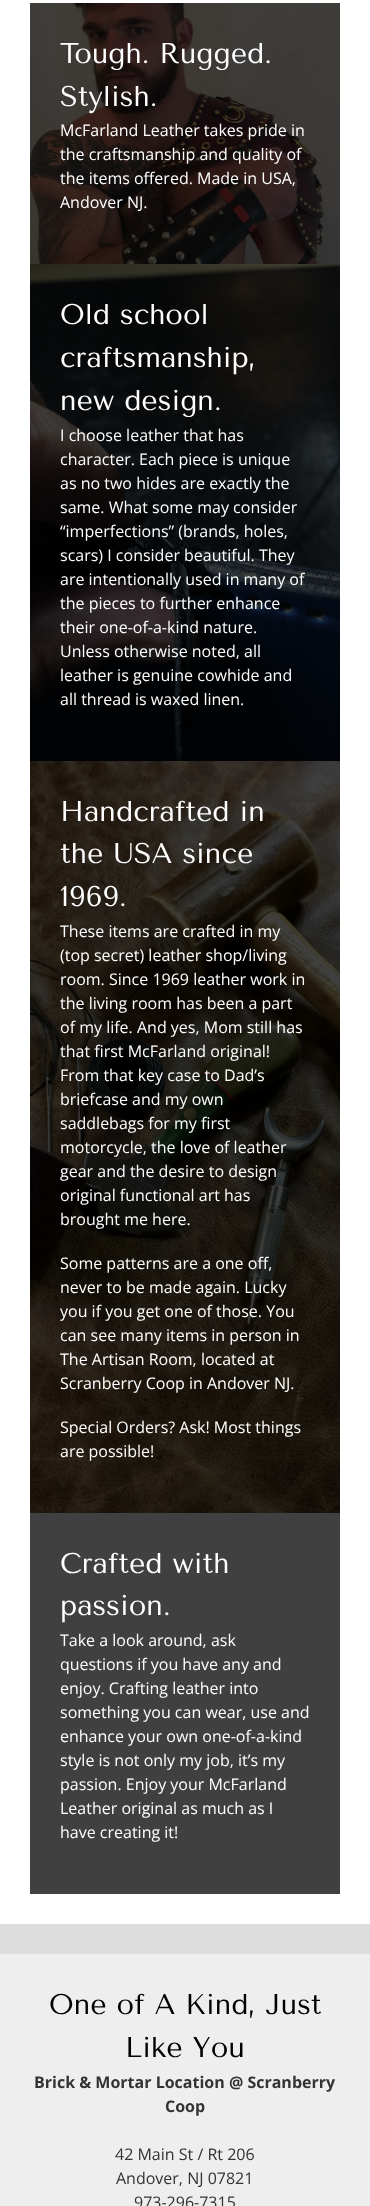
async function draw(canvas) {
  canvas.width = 370;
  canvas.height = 2206;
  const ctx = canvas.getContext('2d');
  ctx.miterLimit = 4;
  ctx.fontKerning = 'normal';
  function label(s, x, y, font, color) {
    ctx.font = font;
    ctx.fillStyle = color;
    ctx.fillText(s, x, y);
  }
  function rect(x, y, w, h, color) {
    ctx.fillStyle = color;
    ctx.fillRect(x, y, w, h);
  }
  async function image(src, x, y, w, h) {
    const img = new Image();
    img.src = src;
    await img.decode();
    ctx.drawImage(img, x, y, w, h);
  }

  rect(0, 0, 370, 2206, '#fff');
  await image('assets/img1.png', 30, 3, 310, 261);
  label('Tough. Rugged.', 60, 63, '28.5px Tenor Sans', '#fff');
  label('Stylish.', 60, 106, '28.5px Tenor Sans', '#fff');
  label('McFarland Leather takes pride in', 60, 136, '16px Open Sans', '#fff');
  label('the craftsmanship and quality of', 60, 160, '16px Open Sans', '#fff');
  label('the items offered. Made in USA,', 60, 184, '16px Open Sans', '#fff');
  label('Andover NJ.', 60, 208, '16px Open Sans', '#fff');
  await image('assets/img2.png', 30, 264, 310, 497);
  label('Old school', 60, 324, '28.5px Tenor Sans', '#fff');
  label('craftsmanship,', 60, 367, '28.5px Tenor Sans', '#fff');
  label('new design.', 60, 410, '28.5px Tenor Sans', '#fff');
  label('I choose leather that has', 60, 441, '16px Open Sans', '#fff');
  label('character. Each piece is unique', 60, 465, '16px Open Sans', '#fff');
  label('as no two hides are exactly the', 60, 489, '16px Open Sans', '#fff');
  label('same. What some may consider', 60, 513, '16px Open Sans', '#fff');
  label('“imperfections” (brands, holes,', 60, 537, '16px Open Sans', '#fff');
  label('scars) I consider beautiful. They', 60, 561, '16px Open Sans', '#fff');
  label('are intentionally used in many of', 60, 585, '16px Open Sans', '#fff');
  label('the pieces to further enhance', 60, 609, '16px Open Sans', '#fff');
  label('their one-of-a-kind nature.', 60, 633, '16px Open Sans', '#fff');
  label('Unless otherwise noted, all', 60, 657, '16px Open Sans', '#fff');
  label('leather is genuine cowhide and', 60, 681, '16px Open Sans', '#fff');
  label('all thread is waxed linen.', 60, 705, '16px Open Sans', '#fff');
  await image('assets/img3.png', 30, 761, 310, 752);
  label('Handcrafted in', 60, 821, '28.5px Tenor Sans', '#fff');
  label('the USA since', 60, 863, '28.5px Tenor Sans', '#fff');
  label('1969.', 60, 906, '28.5px Tenor Sans', '#fff');
  label('These items are crafted in my', 60, 937, '16px Open Sans', '#fff');
  label('(top secret) leather shop/living', 60, 961, '16px Open Sans', '#fff');
  label('room. Since 1969 leather work in', 60, 985, '16px Open Sans', '#fff');
  label('the living room has been a part', 60, 1009, '16px Open Sans', '#fff');
  label('of my life. And yes, Mom still has', 60, 1033, '16px Open Sans', '#fff');
  label('that first McFarland original!', 60, 1057, '16px Open Sans', '#fff');
  label('From that key case to Dad’s', 60, 1081, '16px Open Sans', '#fff');
  label('briefcase and my own', 60, 1105, '16px Open Sans', '#fff');
  label('saddlebags for my first', 60, 1129, '16px Open Sans', '#fff');
  label('motorcycle, the love of leather', 60, 1153, '16px Open Sans', '#fff');
  label('gear and the desire to design', 60, 1177, '16px Open Sans', '#fff');
  label('original functional art has', 60, 1201, '16px Open Sans', '#fff');
  label('brought me here.', 60, 1225, '16px Open Sans', '#fff');
  label('Some patterns are a one off,', 60, 1269, '16px Open Sans', '#fff');
  label('never to be made again. Lucky', 60, 1293, '16px Open Sans', '#fff');
  label('you if you get one of those. You', 60, 1317, '16px Open Sans', '#fff');
  label('can see many items in person in', 60, 1341, '16px Open Sans', '#fff');
  label('The Artisan Room, located at', 60, 1365, '16px Open Sans', '#fff');
  label('Scranberry Coop in Andover NJ.', 60, 1389, '16px Open Sans', '#fff');
  label('Special Orders? Ask! Most things', 60, 1433, '16px Open Sans', '#fff');
  label('are possible!', 60, 1457, '16px Open Sans', '#fff');
  rect(30, 1513, 310, 381, '#404040');
  label('Crafted with', 60, 1573, '28.5px Tenor Sans', '#fff');
  label('passion.', 60, 1615, '28.5px Tenor Sans', '#fff');
  label('Take a look around, ask', 60, 1646, '16px Open Sans', '#fff');
  label('questions if you have any and', 60, 1670, '16px Open Sans', '#fff');
  label('enjoy. Crafting leather into', 60, 1694, '16px Open Sans', '#fff');
  label('something you can wear, use and', 60, 1718, '16px Open Sans', '#fff');
  label('enhance your own one-of-a-kind', 60, 1742, '16px Open Sans', '#fff');
  label('style is not only my job, it’s my', 60, 1766, '16px Open Sans', '#fff');
  label('passion. Enjoy your McFarland', 60, 1790, '16px Open Sans', '#fff');
  label('Leather original as much as I', 60, 1814, '16px Open Sans', '#fff');
  label('have creating it!', 60, 1838, '16px Open Sans', '#fff');
  rect(0, 1954, 370, 252, '#eee');
  rect(0, 1924, 370, 30, '#ddd');
  label('One of A Kind, Just', 49, 2014, '28.5px Tenor Sans', '#000');
  label('Like You', 125, 2057, '28.5px Tenor Sans', '#000');
  label('Brick & Mortar Location @ Scranberry', 34, 2088, 'bold 16px Open Sans', '#333');
  label('Coop', 165, 2112, 'bold 16px Open Sans', '#333');
  label('42 Main St / Rt 206', 115, 2160, '16px Open Sans', '#333');
  label('Andover, NJ 07821', 116, 2184, '16px Open Sans', '#333');
  label('973-296-7315', 134, 2208, '16px Open Sans', '#333');
}

draw(document.querySelector('canvas'));
